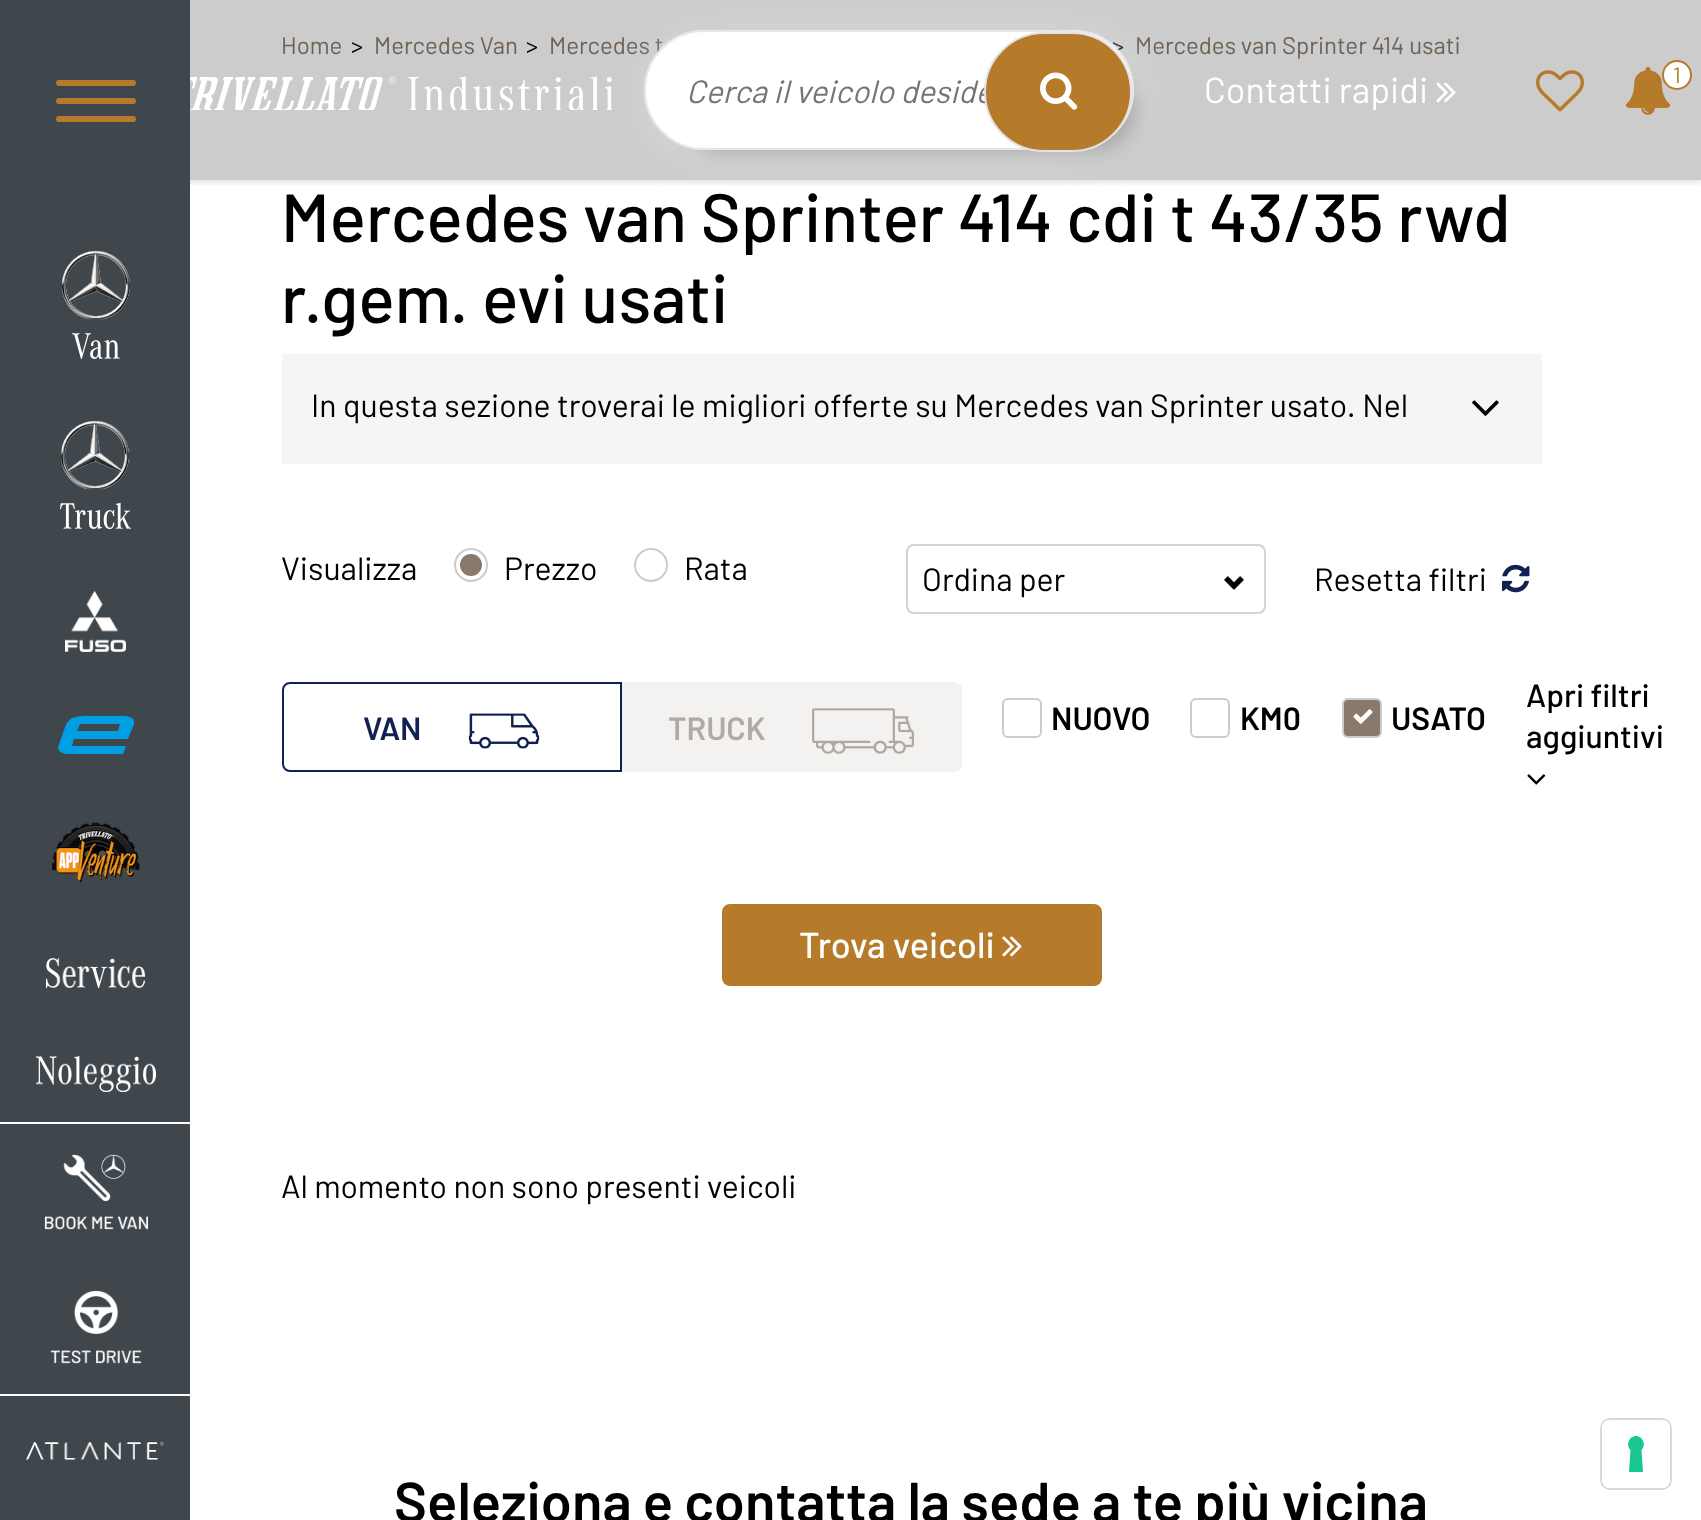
async function draw(canvas) {
  canvas.width = 1701;
  canvas.height = 1520;
  const ctx = canvas.getContext('2d');
  ctx.miterLimit = 4;
  ctx.fontKerning = 'normal';
  function label(s, x, y, font, color) {
    ctx.font = font;
    ctx.fillStyle = color;
    ctx.fillText(s, x, y);
  }
  function rect(x, y, w, h, color) {
    ctx.fillStyle = color;
    ctx.fillRect(x, y, w, h);
  }
  function roundedRect(x, y, w, h, r, color) {
    ctx.fillStyle = color;
    ctx.beginPath();
    ctx.roundRect(x, y, w, h, r);
    ctx.fill();
  }
  async function image(src, x, y, w, h) {
    const img = new Image();
    img.src = src;
    await img.decode();
    ctx.drawImage(img, x, y, w, h);
  }
  let path;

  rect(0, 0, 1701, 1520, '#fff');
  rect(190, 0, 1511, 180, '#ccc');
  ctx.save();
  ctx.beginPath();
  ctx.rect(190, 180, 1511, 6);
  ctx.clip();
  ctx.fillStyle = '#00000033';
  ctx.filter = 'blur(5px)';
  ctx.beginPath();
  ctx.rect(0, 0, 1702, 180);
  ctx.fill();
  ctx.filter = 'none';
  ctx.restore();
  rect(0, 0, 190, 1520, '#3f474d');
  roundedRect(56, 80, 80, 6, 3, '#b57b2b');
  roundedRect(56, 98, 80, 6, 3, '#b57b2b');
  roundedRect(56, 116, 80, 6, 3, '#b57b2b');
  await image('assets/img1.png', 62, 251, 68, 108);
  await image('assets/img2.png', 60, 421, 71, 108);
  await image('assets/img3.png', 65, 591, 61, 61);
  ctx.save();
  ctx.beginPath();
  ctx.rect(58, 716, 76, 38);
  ctx.clip();
  ctx.fillStyle = '#009fe3';
  path = new Path2D('M123 716H89C66 716 68 720 61 739L58 747C58 756 73 754 78 754H123L126 746H72L74 739H128L134 724C136 716 124 716 123 716ZM118 731H77L80 724H120Z');
  ctx.fill(path);
  ctx.restore();
  await image('assets/img4.png', 51, 822, 89, 61);
  await image('assets/img5.png', 46, 958, 100, 30);
  await image('assets/img6.png', 36, 1056, 120, 36);
  rect(0, 1122, 190, 2, '#fff');
  await image('assets/img7.png', 44, 1154, 104, 76);
  await image('assets/img8.png', 50, 1290, 92, 74);
  rect(0, 1394, 190, 2, '#fff');
  await image('assets/img9.png', 26, 1442, 138, 18);
  label('Home', 281, 54, '24px Barlow', '#6e6156');
  label('>', 351, 54, '24px Barlow', '#000');
  label('Mercedes Van', 374, 54, '24px Barlow', '#6e6156');
  label('>', 526, 54, '24px Barlow', '#000');
  label('Mercedes t', 549, 54, '24px Barlow', '#6e6156');
  label('>', 1112, 54, '24px Barlow', '#000');
  label('Mercedes van Sprinter 414 usati', 1135, 54, '24px Barlow', '#6e6156');
  await image('assets/img10.png', 190, 76, 422, 34);
  ctx.fillStyle = '#e6e6e66e';
  ctx.filter = 'blur(20px)';
  ctx.beginPath();
  ctx.roundRect(644, 30, 498, 128, 64);
  ctx.fill();
  ctx.filter = 'none';
  ctx.fillStyle = '#3c3c3c52';
  ctx.filter = 'blur(10px)';
  ctx.beginPath();
  ctx.roundRect(684, 70, 450, 80, 40);
  ctx.fill();
  ctx.filter = 'none';
  roundedRect(644, 30, 490, 120, 60, '#fff');
  ctx.beginPath();
  ctx.roundRect(645, 31, 488, 118, 59);
  ctx.strokeStyle = '#e2e2e2cf';
  ctx.lineWidth = 2;
  ctx.stroke();
  label('Cerca il veicolo deside', 686, 103, 'italic 32px Barlow', '#757575');
  ctx.fillStyle = '#b57b2b';
  ctx.beginPath();
  ctx.roundRect(985, 33, 146, 118, 59);
  ctx.fill();
  ctx.strokeStyle = '#e2e2e2';
  ctx.stroke();
  await image('assets/img11.png', 1040, 72, 38, 38);
  label('Contatti rapidi', 1204, 103, '36px Barlow', '#fff');
  await image('assets/img12.png', 1436, 82, 20, 21);
  await image('assets/img13.png', 1536, 70, 48, 42);
  await image('assets/img14.png', 1625, 66, 46, 49);
  ctx.beginPath();
  ctx.arc(1677, 75, 14, 0, 2 * Math.PI);
  ctx.fill();
  ctx.strokeStyle = '#b57b2b';
  ctx.stroke();
  label('1', 1673, 83, '22px Barlow', '#b57b2b');
  label('Mercedes van Sprinter 414 cdi t 43/35 rwd', 281, 242, '500 68px Barlow', '#000');
  label('r.gem. evi usati', 281, 323, '500 68px Barlow', '#000');
  rect(282, 354, 1260, 110, '#f5f5f5');
  label('In questa sezione troverai le migliori offerte su Mercedes van Sprinter usato. Nel', 311, 417, '32px Barlow', '#000');
  await image('assets/img15.png', 1472, 400, 27, 16);
  label('Visualizza', 281, 580, '32px Barlow', '#000');
  ctx.beginPath();
  ctx.arc(471, 565, 16, 0, 2 * Math.PI);
  ctx.strokeStyle = '#ccc';
  ctx.stroke();
  ctx.fillStyle = '#89796c';
  ctx.beginPath();
  ctx.arc(471, 565, 11, 0, 2 * Math.PI);
  ctx.fill();
  label('Prezzo', 504, 580, '32px Barlow', '#000');
  ctx.beginPath();
  ctx.arc(651, 565, 16, 0, 2 * Math.PI);
  ctx.stroke();
  label('Rata', 684, 580, '32px Barlow', '#000');
  await image('assets/img16.png', 1224, 576, 20, 14);
  ctx.beginPath();
  ctx.roundRect(907, 545, 358, 68, 7);
  ctx.strokeStyle = '#ced4da';
  ctx.stroke();
  label('Ordina per', 922, 591, '32px Barlow', '#000');
  label('Resetta filtri', 1314, 591, '32px Barlow', '#000');
  await image('assets/img17.png', 1502, 564, 28, 29);
  roundedRect(282, 682, 680, 90, 8, '#f3f2f1');
  ctx.fillStyle = '#fff';
  ctx.beginPath();
  ctx.roundRect(283, 683, 338, 88, [7, 0, 0, 7]);
  ctx.fill();
  ctx.strokeStyle = '#112151';
  ctx.stroke();
  label('VAN', 363, 740, '600 32px Barlow', '#112151');
  await image('assets/img18.png', 468, 713, 72, 36);
  label('TRUCK', 668, 740, '600 32px Barlow', '#afaaa3');
  await image('assets/img19.png', 812, 708, 102, 46);
  ctx.beginPath();
  ctx.roundRect(1003, 699, 38, 38, 5);
  ctx.strokeStyle = '#ccc';
  ctx.stroke();
  label('NUOVO', 1051, 730, '600 32px Barlow', '#000');
  ctx.beginPath();
  ctx.roundRect(1191, 699, 38, 38, 5);
  ctx.stroke();
  label('KM0', 1240, 730, '600 32px Barlow', '#000');
  ctx.fillStyle = '#89796c';
  ctx.beginPath();
  ctx.roundRect(1343, 699, 38, 38, 5);
  ctx.fill();
  ctx.stroke();
  label('USATO', 1391, 730, '600 32px Barlow', '#000');
  await image('assets/img20.png', 1353, 709, 20, 15);
  label('Apri filtri', 1526, 707, '500 32px Barlow', '#000');
  label('aggiuntivi', 1526, 748, '500 32px Barlow', '#000');
  await image('assets/img21.png', 1527, 774, 19, 11);
  ctx.fillStyle = '#b57b2b';
  ctx.beginPath();
  ctx.roundRect(723, 905, 378, 80, 7);
  ctx.fill();
  ctx.strokeStyle = '#b57b2b';
  ctx.stroke();
  label('Trova veicoli', 799, 958, '500 36px Barlow', '#fff');
  await image('assets/img22.png', 1002, 936, 20, 21);
  label('Al momento non sono presenti veicoli', 281, 1198, '32px Barlow', '#000');
  ctx.beginPath();
  ctx.roundRect(1601, 1419, 70, 70, 9);
  ctx.strokeStyle = '#d9d9d9';
  ctx.stroke();
  roundedRect(1602, 1420, 68, 68, 8, '#fff');
  ctx.fillStyle = '#1cc691';
  path = new Path2D('M1636 1436C1643 1436 1646.5 1445.5 1641.5 1450L1643 1472H1629L1630.5 1450C1625.5 1445.5 1629 1436 1636 1436Z');
  ctx.fill(path, 'evenodd');
  label('Seleziona e contatta la sede a te più vicina', 394, 1522, '600 56px Barlow', '#000');
}

draw(document.querySelector('canvas'));
